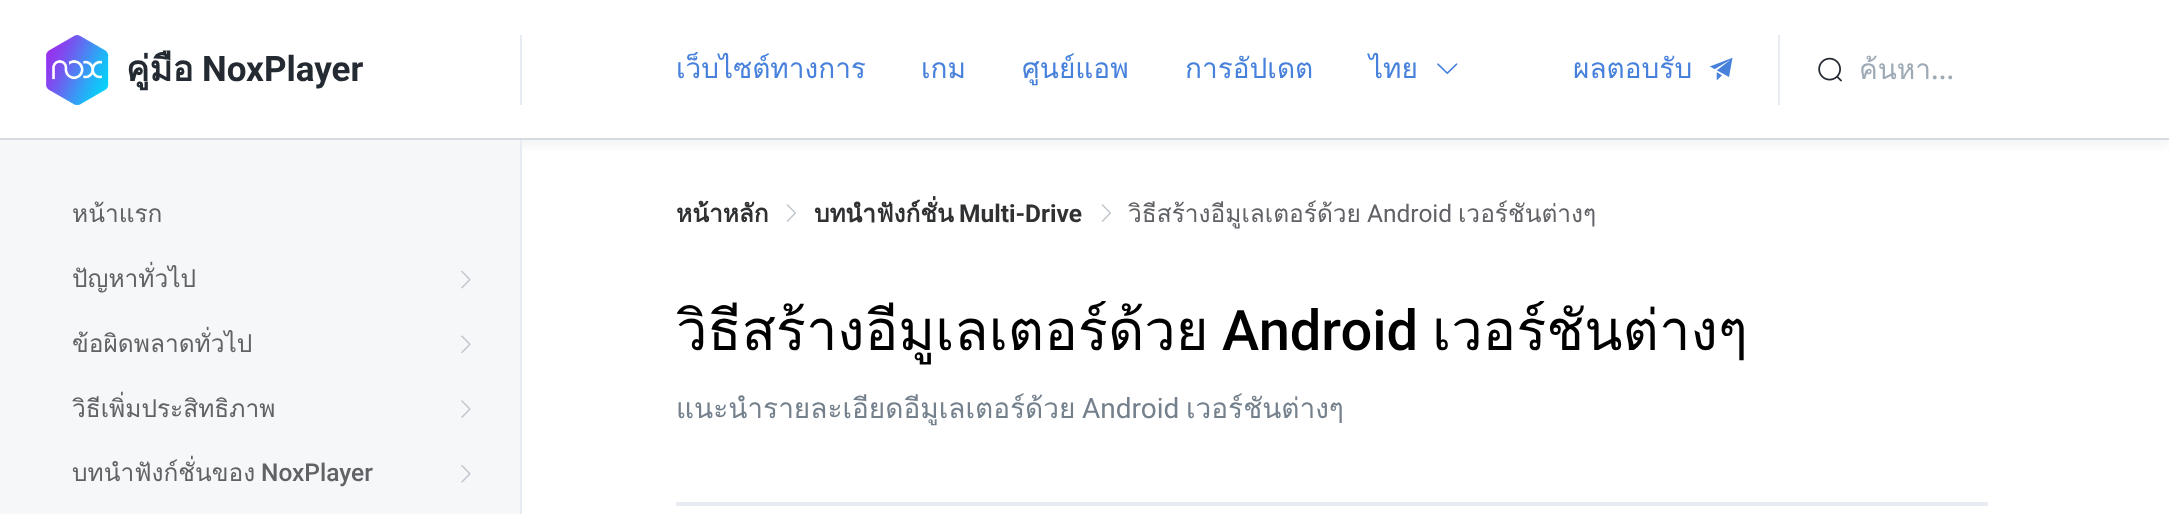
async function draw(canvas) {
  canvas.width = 2169;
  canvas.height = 514;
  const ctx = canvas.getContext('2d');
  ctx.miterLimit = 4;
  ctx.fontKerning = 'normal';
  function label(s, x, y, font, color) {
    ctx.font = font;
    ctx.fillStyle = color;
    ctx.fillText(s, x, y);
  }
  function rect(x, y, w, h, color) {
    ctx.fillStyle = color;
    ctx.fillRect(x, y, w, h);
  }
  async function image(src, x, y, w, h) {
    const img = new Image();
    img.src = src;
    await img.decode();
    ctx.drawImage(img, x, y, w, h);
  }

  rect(0, 0, 2169, 514, '#fff');
  ctx.save();
  ctx.beginPath();
  ctx.rect(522, 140, 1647, 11);
  ctx.clip();
  ctx.fillStyle = '#74818d1a';
  ctx.filter = 'blur(7px)';
  ctx.beginPath();
  ctx.rect(0, 5, 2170, 140);
  ctx.fill();
  ctx.filter = 'none';
  ctx.restore();
  rect(0, 138, 2169, 2, '#d4dadf');
  await image('assets/img1.png', 46, 35, 63, 70);
  label('คู่มือ', 126, 81, 'bold 35px Loma', '#242a31');
  label('NoxPlayer', 202, 81, 'bold 35px Roboto', '#242a31');
  rect(520, 35, 2, 70, '#e6ecf1');
  ctx.save();
  ctx.beginPath();
  ctx.rect(676, 0, 1088, 140);
  ctx.clip();
  label('เว็บไซต์ทางการ', 676, 78, '28px Loma', '#4781dc');
  ctx.restore();
  label('เกม', 921, 78, '28px Loma', '#4781dc');
  label('ศูนย์แอพ', 1022, 78, '28px Loma', '#4781dc');
  label('การอัปเดต', 1185, 78, '28px Loma', '#4781dc');
  label('ไทย', 1369, 78, '28px Loma', '#4781dc');
  await image('assets/img2.png', 1437, 63, 21, 11);
  label('ผลตอบรับ', 1573, 78, '28px Loma', '#4781dc');
  await image('assets/img3.png', 1709, 57, 24, 24);
  rect(1778, 35, 2, 70, '#e6ecf1');
  await image('assets/img4.png', 1818, 57, 24, 25);
  ctx.save();
  ctx.beginPath();
  ctx.rect(1859, 47, 269, 44);
  ctx.clip();
  label('ค้นหา', 1859, 79, '28px Loma', '#9daab6');
  ctx.restore();
  label('...', 1931, 79, '500 28px Roboto', '#9daab6');
  rect(0, 140, 520, 374, '#f5f7f9');
  rect(520, 140, 2, 374, '#e6ecf1');
  label('หน้าแรก', 72, 222, '24.5px Loma', '#606266');
  label('ปัญหาทั่วไป', 72, 287, '24.5px Loma', '#606266');
  await image('assets/img5.png', 461, 270, 10, 19);
  label('ข้อผิดพลาดทั่วไป', 72, 352, '24.5px Loma', '#606266');
  await image('assets/img6.png', 461, 335, 10, 18);
  label('วิธีเพิ่มประสิทธิภาพ', 72, 417, '24.5px Loma', '#606266');
  await image('assets/img7.png', 461, 400, 10, 18);
  label('บทนำฟังก์ชั่นของ', 72, 481, '24.5px Loma', '#606266');
  label('NoxPlayer', 261, 481, '500 24.5px Roboto', '#606266');
  await image('assets/img8.png', 461, 465, 10, 18);
  label('หน้าหลัก', 676, 222, 'bold 24.5px Loma', '#303133');
  await image('assets/img9.png', 786, 204, 10, 18);
  label('บทนำฟังก์ชั่น', 814, 222, 'bold 24.5px Loma', '#303133');
  label('Multi-Drive', 959, 222, 'bold 24.5px Roboto', '#303133');
  await image('assets/img9.png', 1101, 204, 10, 18);
  label('วิธีสร้างอีมูเลเตอร์ด้วย', 1128, 222, '24.5px Loma', '#606266');
  label('Android', 1367, 222, '24.5px Roboto', '#606266');
  label('เวอร์ชันต่างๆ', 1458, 222, '24.5px Loma', '#606266');
  rect(676, 502, 1312, 4, '#e6ecf1');
  label('วิธีสร้างอีมูเลเตอร์ด้วย', 676, 350, '56px Loma', '#000');
  label('Android', 1222, 350, '500 56px Roboto', '#000');
  label('เวอร์ชันต่างๆ', 1432, 350, '56px Loma', '#000');
  label('แนะนำรายละเอียดอีมูเลเตอร์ด้วย', 676, 418, '28px Loma', '#74818d');
  label('Android', 1082, 418, '28px Roboto', '#74818d');
  label('เวอร์ชันต่างๆ', 1186, 418, '28px Loma', '#74818d');
}

draw(document.querySelector('canvas'));
